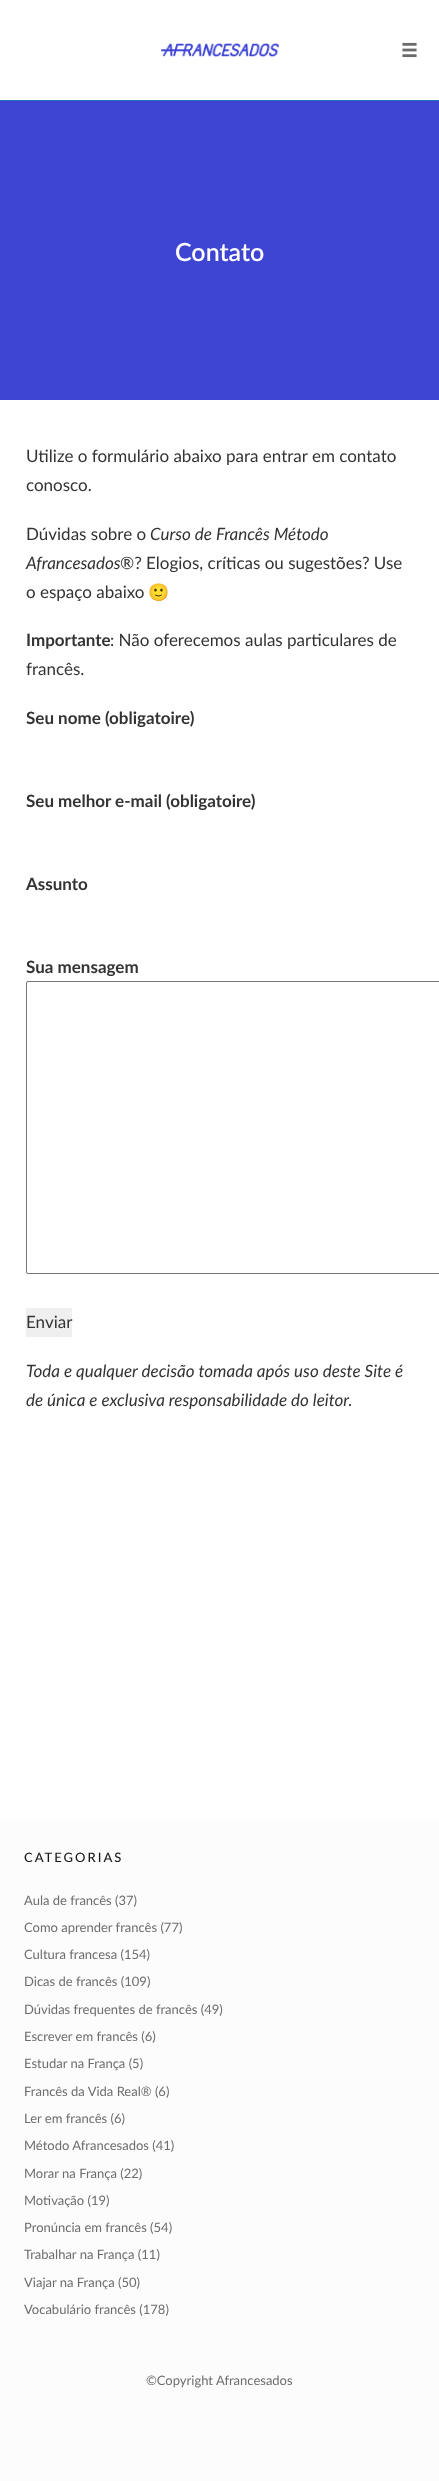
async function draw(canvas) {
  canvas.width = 439;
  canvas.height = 2481;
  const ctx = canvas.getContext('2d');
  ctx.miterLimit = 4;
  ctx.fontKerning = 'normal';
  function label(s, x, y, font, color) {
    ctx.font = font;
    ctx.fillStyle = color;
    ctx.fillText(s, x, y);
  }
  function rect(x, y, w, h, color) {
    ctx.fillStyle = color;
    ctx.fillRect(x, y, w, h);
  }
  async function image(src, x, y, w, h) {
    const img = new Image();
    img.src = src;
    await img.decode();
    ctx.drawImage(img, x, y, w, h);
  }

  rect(0, 0, 439, 2481, '#fff');
  rect(0, 100, 439, 1, '#1e73be');
  await image('assets/img1.png', 161, 43, 119, 14);
  await image('assets/img2.png', 402, 42, 15, 16);
  rect(0, 101, 439, 299, '#3f45d3');
  label('Contato', 175, 261, '600 25px Lato', '#fff');
  label('Utilize o formulário abaixo para entrar em contato', 26, 462, '17px Lato', '#333');
  label('conosco.', 26, 491, '17px Lato', '#333');
  label('Dúvidas sobre o', 26, 540, '17px Lato', '#333');
  label('Curso de Francês Método', 150, 540, 'italic 17px Lato', '#333');
  label('Afrancesados', 26, 569, 'italic 17px Lato', '#333');
  label('®? Elogios, críticas ou sugestões? Use', 120, 569, '17px Lato', '#333');
  label('o espaço abaixo', 26, 598, '17px Lato', '#333');
  label('🙂', 148, 598, '17px Noto Color Emoji', '#333');
  label('Importante', 26, 646, 'bold 17px Lato', '#333');
  label(': Não oferecemos aulas particulares de', 110, 646, '17px Lato', '#333');
  label('francês.', 26, 675, '17px Lato', '#333');
  label('Seu nome (obligatoire)', 26, 724, 'bold 17px Lato', '#333');
  label('Seu melhor e-mail (obligatoire)', 26, 807, 'bold 17px Lato', '#333');
  label('Assunto', 26, 890, 'bold 17px Lato', '#333');
  label('Sua mensagem', 26, 973, 'bold 17px Lato', '#333');
  ctx.beginPath();
  ctx.roundRect(26.5, 981.5, 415, 292, 1.5);
  ctx.strokeStyle = '#767676';
  ctx.stroke();
  rect(26, 1308, 46, 29, '#efefef');
  label('Enviar', 26, 1328, '17px Lato', '#333');
  label('Toda e qualquer decisão tomada após uso deste Site é', 26, 1377, 'italic 17px Lato', '#333');
  label('de única e exclusiva responsabilidade do leitor.', 26, 1406, 'italic 17px Lato', '#333');
  rect(0, 1821, 439, 660, '#fcfcfc');
  ctx.letterSpacing = '2px';
  label('CATEGORIAS', 24, 1862, '500 13px Lato', '#191919');
  ctx.letterSpacing = '0px';
  label('Aula de francês (37)', 24, 1905, '13px Lato', '#6d6d6d');
  label('Como aprender francês (77)', 24, 1932, '13px Lato', '#6d6d6d');
  label('Cultura francesa (154)', 24, 1959, '13px Lato', '#6d6d6d');
  label('Dicas de francês (109)', 24, 1986, '13px Lato', '#6d6d6d');
  label('Dúvidas frequentes de francês (49)', 24, 2014, '13px Lato', '#6d6d6d');
  label('Escrever em francês (6)', 24, 2041, '13px Lato', '#6d6d6d');
  label('Estudar na França (5)', 24, 2068, '13px Lato', '#6d6d6d');
  label('Francês da Vida Real® (6)', 24, 2096, '13px Lato', '#6d6d6d');
  label('Ler em francês (6)', 24, 2123, '13px Lato', '#6d6d6d');
  label('Método Afrancesados (41)', 24, 2150, '13px Lato', '#6d6d6d');
  label('Morar na França (22)', 24, 2178, '13px Lato', '#6d6d6d');
  label('Motivação (19)', 24, 2205, '13px Lato', '#6d6d6d');
  label('Pronúncia em francês (54)', 24, 2232, '13px Lato', '#6d6d6d');
  label('Trabalhar na França (11)', 24, 2259, '13px Lato', '#6d6d6d');
  label('Viajar na França (50)', 24, 2287, '13px Lato', '#6d6d6d');
  label('Vocabulário francês (178)', 24, 2314, '13px Lato', '#6d6d6d');
  label('©Copyright Afrancesados', 146, 2385, '13px Lato', '#6d6d6d');
}

draw(document.querySelector('canvas'));
